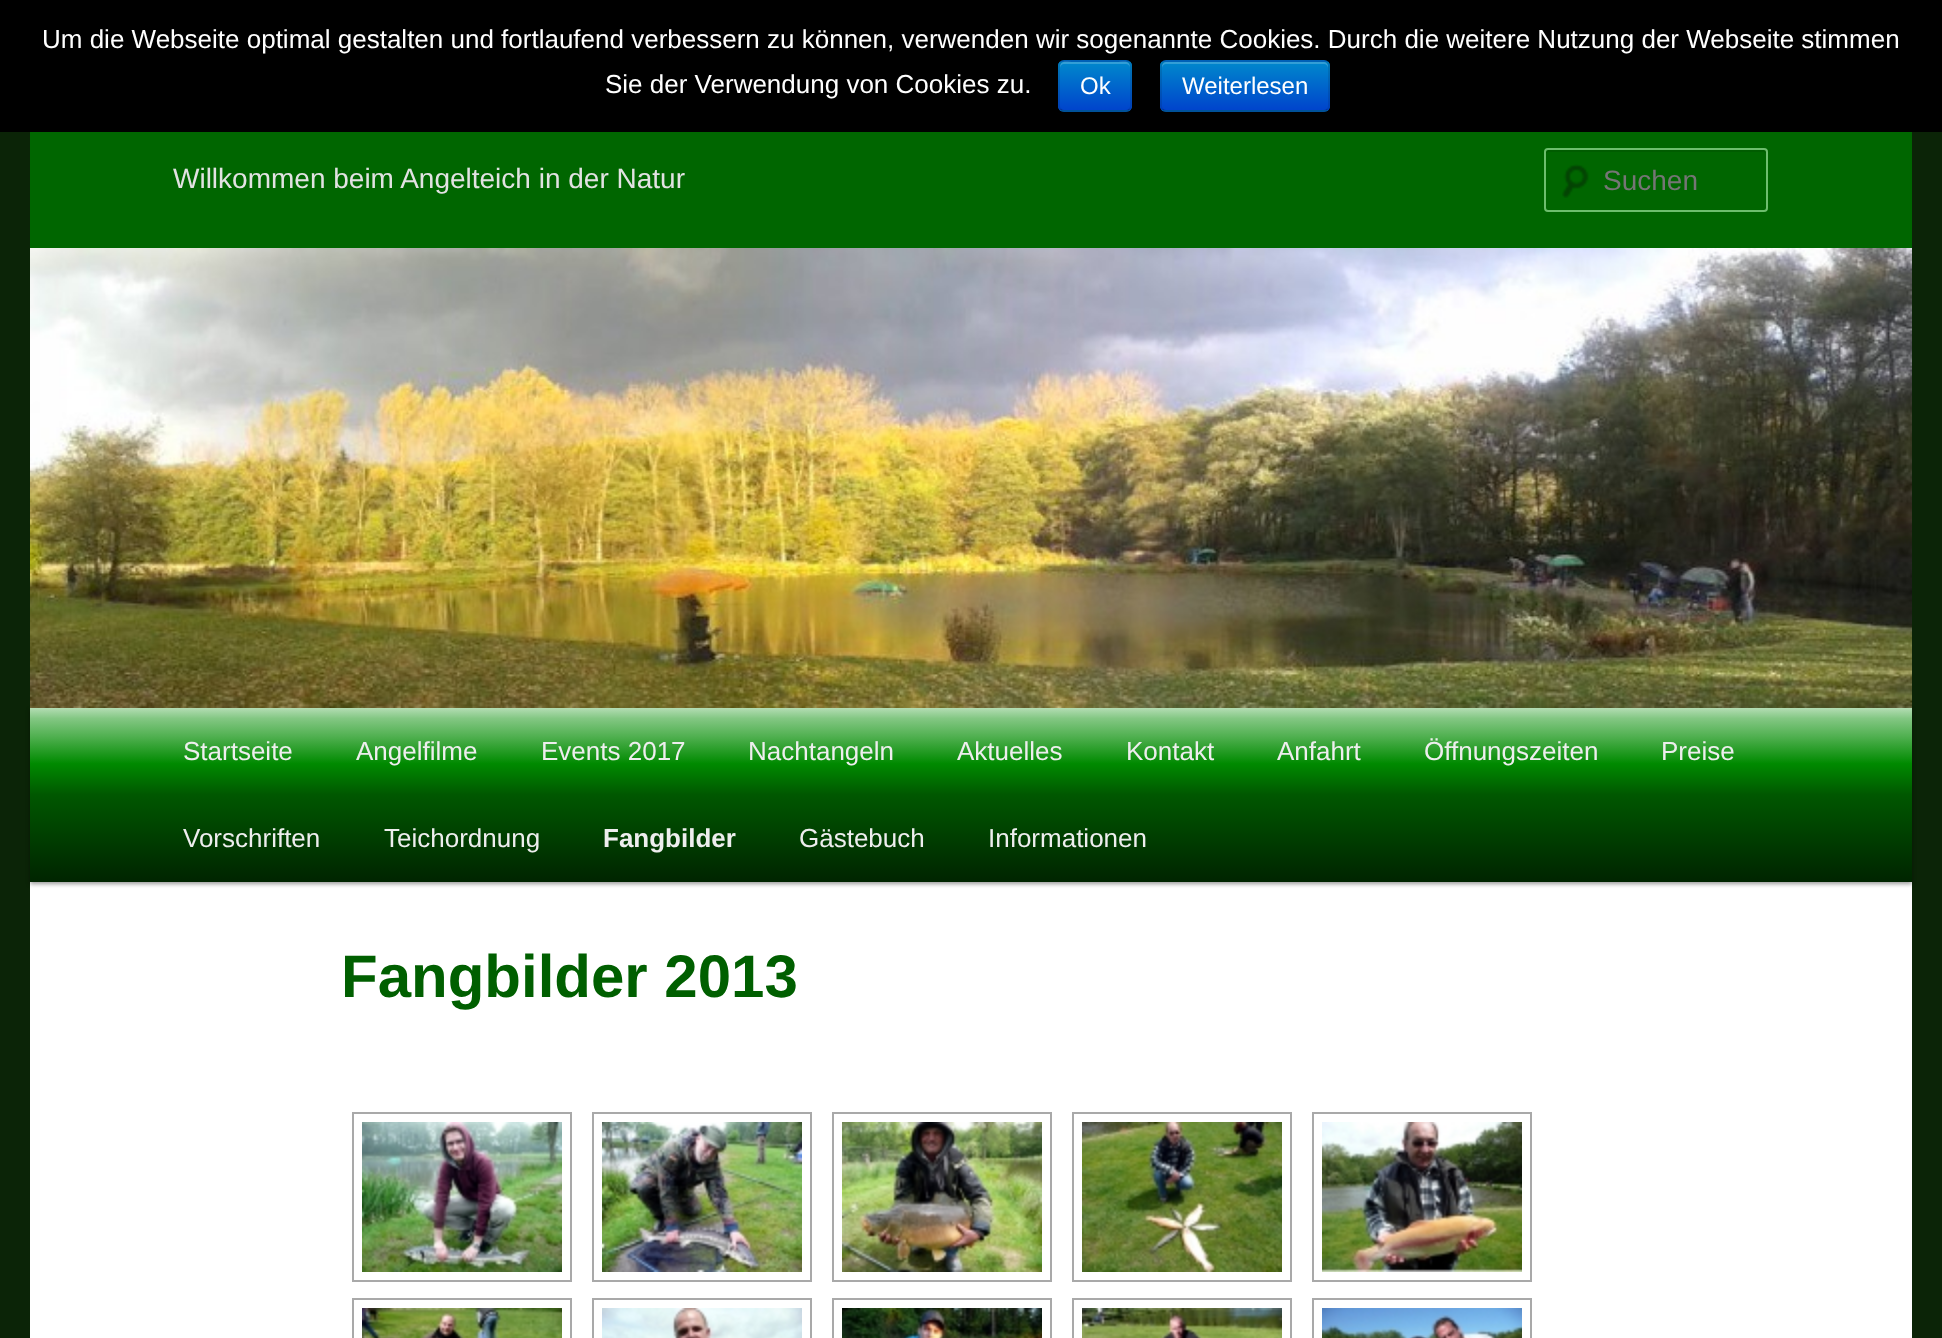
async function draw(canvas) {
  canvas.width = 1942;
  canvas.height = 1338;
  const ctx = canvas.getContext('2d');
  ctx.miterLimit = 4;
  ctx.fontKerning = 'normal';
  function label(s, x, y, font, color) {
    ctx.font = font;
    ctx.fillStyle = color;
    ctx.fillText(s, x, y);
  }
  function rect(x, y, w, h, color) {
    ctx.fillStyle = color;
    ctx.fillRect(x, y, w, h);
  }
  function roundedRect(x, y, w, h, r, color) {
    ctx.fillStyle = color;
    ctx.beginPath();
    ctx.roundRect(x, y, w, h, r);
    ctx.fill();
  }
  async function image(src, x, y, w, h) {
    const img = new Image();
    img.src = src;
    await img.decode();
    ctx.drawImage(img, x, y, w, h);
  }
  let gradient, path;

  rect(0, 0, 1942, 1338, '#0b2407');
  rect(0, 0, 1942, 132, '#000');
  label('Um die Webseite optimal gestalten und fortlaufend verbessern zu können, verwenden wir sogenannte Cookies. Durch die weitere Nutzung der Webseite stimmen', 42, 48, '26px Liberation Sans', '#fff');
  label('Sie der Verwendung von Cookies zu.', 605, 93, '26px Liberation Sans', '#fff');
  roundedRect(1058, 60, 74, 52, 6, '#006dcc');
  ctx.save();
  ctx.beginPath();
  ctx.roundRect(1058, 60, 74, 52, 6);
  ctx.clip();
  gradient = ctx.createLinearGradient(1095, 62, 1095, 110);
  gradient.addColorStop(0, '#08c');
  gradient.addColorStop(1, '#04c');
  ctx.fillStyle = gradient;
  ctx.fillRect(1058, 62, 74, 48);
  ctx.restore();
  ctx.fillStyle = '#ffffff33';
  path = new Path2D('M1064 64H1126C1128 64 1130 66 1130 68C1130 59 1123 62 1116 62H1074C1067 62 1060 59 1060 68C1060 66 1062 64 1064 64Z');
  ctx.fill(path);
  path = new Path2D('M1129.5 109.5C1128.5 110.5 1127.5 111 1126 111H1064C1062.5 111 1061.5 110.5 1060.5 109.5');
  ctx.strokeStyle = '#00000040';
  ctx.lineWidth = 2;
  ctx.stroke(path);
  path = new Path2D('M1060.5 109.5C1059.5 108.5 1059 107.5 1059 106V66C1059 64.5 1059.5 63.5 1060.5 62.5C1061.5 61.5 1062.5 61 1064 61H1126C1127.5 61 1128.5 61.5 1129.5 62.5C1130.5 63.5 1131 64.5 1131 66V106C1131 107.5 1130.5 108.5 1129.5 109.5');
  ctx.strokeStyle = '#0000001a';
  ctx.stroke(path);
  label('Ok', 1080, 94, '24px Liberation Sans', '#fff');
  roundedRect(1160, 60, 170, 52, 6, '#006dcc');
  ctx.save();
  ctx.beginPath();
  ctx.roundRect(1160, 60, 170, 52, 6);
  ctx.clip();
  gradient = ctx.createLinearGradient(1245, 62, 1245, 110);
  gradient.addColorStop(0, '#08c');
  gradient.addColorStop(1, '#04c');
  ctx.fillStyle = gradient;
  ctx.fillRect(1160, 62, 170, 48);
  ctx.restore();
  ctx.fillStyle = '#ffffff33';
  path = new Path2D('M1166 64H1324C1326 64 1328 66 1328 68V66C1328 64 1326 62 1324 62H1166C1164 62 1162 64 1162 66V68C1162 66 1164 64 1166 64Z');
  ctx.fill(path);
  path = new Path2D('M1327.5 109.5C1326.5 110.5 1325.5 111 1324 111H1166C1164.5 111 1163.5 110.5 1162.5 109.5');
  ctx.strokeStyle = '#00000040';
  ctx.stroke(path);
  path = new Path2D('M1162.5 109.5C1161.5 108.5 1161 107.5 1161 106V66C1161 64.5 1161.5 63.5 1162.5 62.5C1163.5 61.5 1164.5 61 1166 61H1324C1325.5 61 1326.5 61.5 1327.5 62.5C1328.5 63.5 1329 64.5 1329 66V106C1329 107.5 1328.5 108.5 1327.5 109.5');
  ctx.strokeStyle = '#0000001a';
  ctx.stroke(path);
  label('Weiterlesen', 1182, 94, '24px Liberation Sans', '#fff');
  rect(30, 882, 1882, 456, '#fff');
  rect(30, 132, 1882, 116, '#060');
  label('Willkommen beim Angelteich in der Natur', 173, 188, '28px Liberation Sans', '#e2e2e2');
  await image('assets/img1.png', 1562, 164, 27, 34);
  ctx.fillStyle = '#005c00';
  path = new Path2D('M1548 152H1764C1765 152 1766 153 1766 154V152C1766 151 1765 150 1764 150H1548C1547 150 1546 151 1546 152V154C1546 153 1547 152 1548 152Z');
  ctx.fill(path);
  ctx.beginPath();
  ctx.roundRect(1545, 149, 222, 62, 3);
  ctx.strokeStyle = '#6dbd6d';
  ctx.stroke();
  label('Suchen', 1603, 190, '28px Liberation Sans', '#757575');
  ctx.fillStyle = '#00000066';
  ctx.filter = 'blur(2px)';
  ctx.beginPath();
  ctx.rect(30, 710, 1882, 174);
  ctx.fill();
  ctx.filter = 'none';
  await image('assets/img2.png', 30, 248, 1882, 460);
  gradient = ctx.createLinearGradient(971, 708, 971, 882);
  gradient.addColorStop(0, '#b4ddb4');
  gradient.addColorStop(0.06, '#83c783');
  gradient.addColorStop(0.16, '#52b152');
  gradient.addColorStop(0.32, '#008a00');
  gradient.addColorStop(0.5, '#005700');
  gradient.addColorStop(1, '#002400');
  ctx.fillStyle = gradient;
  ctx.fillRect(30, 708, 1882, 174);
  label('Startseite', 183, 760, '26px Liberation Sans', '#eee');
  label('Angelfilme', 356, 760, '26px Liberation Sans', '#eee');
  label('Events 2017', 541, 760, '26px Liberation Sans', '#eee');
  label('Nachtangeln', 748, 760, '26px Liberation Sans', '#eee');
  label('Aktuelles', 957, 760, '26px Liberation Sans', '#eee');
  label('Kontakt', 1126, 760, '26px Liberation Sans', '#eee');
  label('Anfahrt', 1277, 760, '26px Liberation Sans', '#eee');
  label('Öffnungszeiten', 1424, 760, '26px Liberation Sans', '#eee');
  label('Preise', 1661, 760, '26px Liberation Sans', '#eee');
  label('Vorschriften', 183, 847, '26px Liberation Sans', '#eee');
  label('Teichordnung', 384, 847, '26px Liberation Sans', '#eee');
  label('Fangbilder', 603, 847, 'bold 26px Liberation Sans', '#eee');
  label('Gästebuch', 799, 847, '26px Liberation Sans', '#eee');
  label('Informationen', 988, 847, '26px Liberation Sans', '#eee');
  label('Fangbilder 2013', 341, 997, 'bold 60px Liberation Sans', '#005f00');
  ctx.strokeStyle = '#a9a9a9';
  ctx.strokeRect(353, 1113, 218, 168);
  await image('assets/img3.png', 362, 1122, 200, 150);
  ctx.strokeRect(593, 1113, 218, 168);
  await image('assets/img4.png', 602, 1122, 200, 150);
  ctx.strokeRect(833, 1113, 218, 168);
  await image('assets/img5.png', 842, 1122, 200, 150);
  ctx.strokeRect(1073, 1113, 218, 168);
  await image('assets/img6.png', 1082, 1122, 200, 150);
  ctx.strokeRect(1313, 1113, 218, 168);
  await image('assets/img7.png', 1322, 1122, 200, 150);
  ctx.strokeRect(353, 1299, 218, 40);
  await image('assets/img8.png', 362, 1308, 200, 30);
  ctx.strokeRect(593, 1299, 218, 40);
  await image('assets/img9.png', 602, 1308, 200, 30);
  ctx.strokeRect(833, 1299, 218, 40);
  await image('assets/img10.png', 842, 1308, 200, 30);
  ctx.strokeRect(1073, 1299, 218, 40);
  await image('assets/img11.png', 1082, 1308, 200, 30);
  ctx.strokeRect(1313, 1299, 218, 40);
  await image('assets/img12.png', 1322, 1308, 200, 30);
}

draw(document.querySelector('canvas'));
